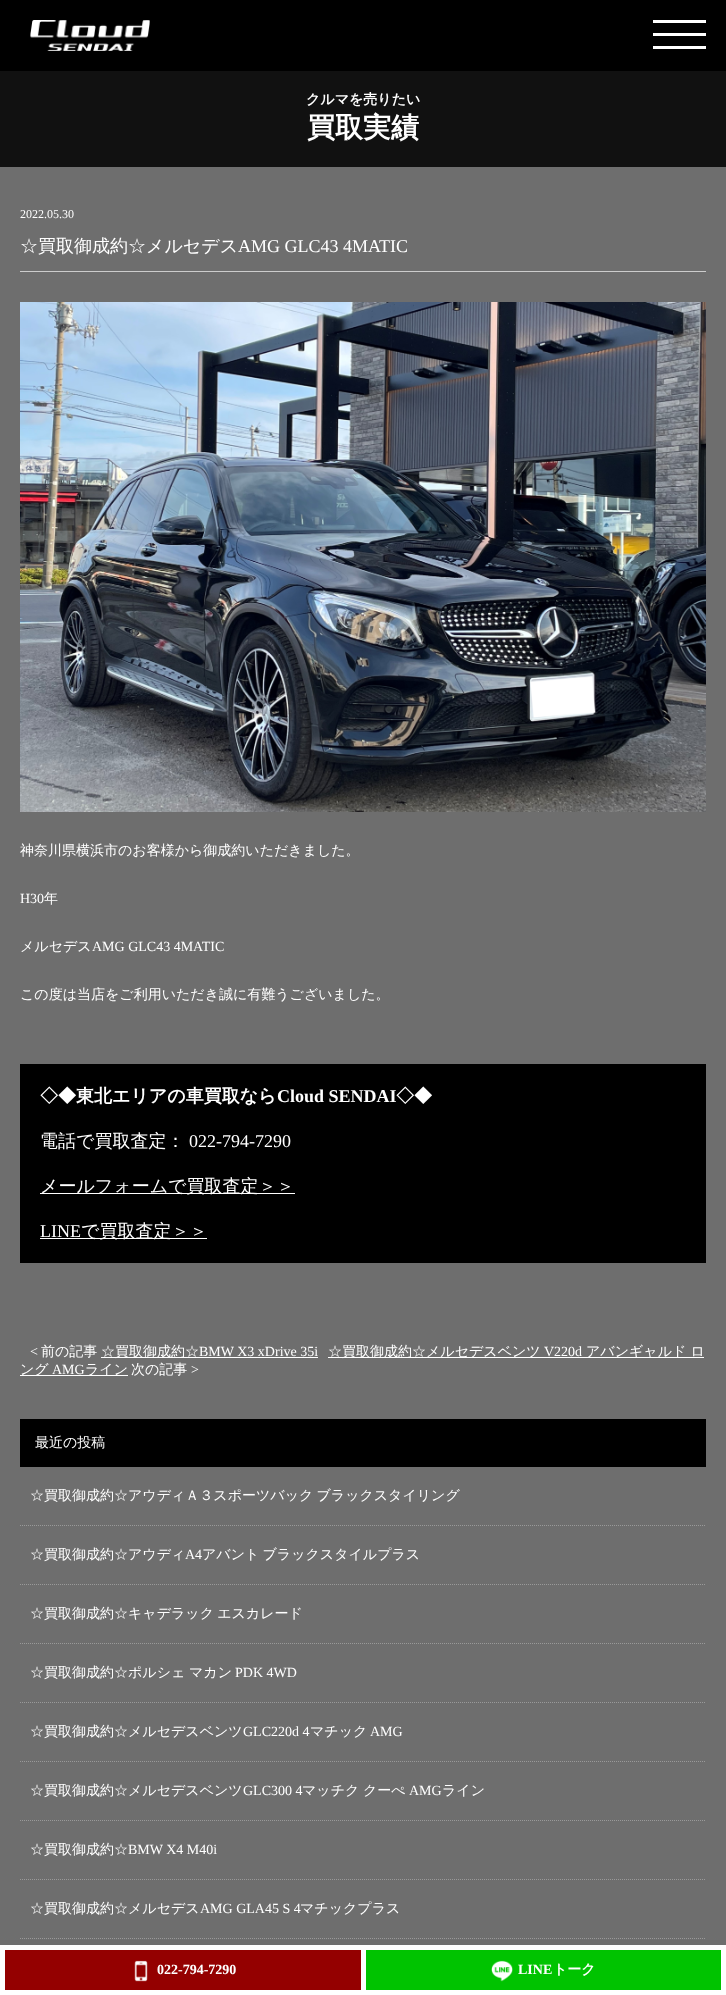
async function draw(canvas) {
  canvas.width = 726;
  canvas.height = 1995;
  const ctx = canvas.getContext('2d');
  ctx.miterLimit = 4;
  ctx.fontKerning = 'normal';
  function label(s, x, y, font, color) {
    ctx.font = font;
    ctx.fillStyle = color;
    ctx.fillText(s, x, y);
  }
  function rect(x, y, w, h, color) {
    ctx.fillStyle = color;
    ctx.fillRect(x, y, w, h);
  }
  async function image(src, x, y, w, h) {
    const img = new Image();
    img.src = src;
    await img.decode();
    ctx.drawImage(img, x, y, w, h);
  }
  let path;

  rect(0, 0, 726, 1995, '#6e6e6e');
  rect(0, 0, 726, 71, '#000');
  await image('assets/img1.png', 30, 20, 120, 31);
  await image('assets/img2.png', 653, 20, 53, 29);
  rect(0, 71, 726, 96, '#111');
  label('クルマを売りたい', 306, 104, 'bold 14px WenQuanYi Zen Hei', '#fff');
  label('買取実績', 307, 137, 'bold 28px WenQuanYi Zen Hei', '#fff');
  label('2022.05.30', 20, 218, '12px Liberation Serif', '#fff');
  rect(20, 271, 686, 1, '#ccc');
  label('☆買取御成約☆メルセデス', 20, 252, '500 18px WenQuanYi Zen Hei', '#fff');
  label('AMG GLC43 4MATIC', 238, 252, '18px Liberation Serif', '#fff');
  await image('assets/img3.png', 20, 302, 686, 510);
  label('神奈川県横浜市のお客様から御成約いただきました。', 20, 855, '500 14px WenQuanYi Zen Hei', '#fff');
  label('H30', 20, 903, '14px Liberation Serif', '#fff');
  label('年', 44, 903, '500 14px WenQuanYi Zen Hei', '#fff');
  label('メルセデス', 20, 951, '500 14px WenQuanYi Zen Hei', '#fff');
  label('AMG GLC43 4MATIC', 92, 951, '14px Liberation Serif', '#fff');
  label('この度は当店をご利用いただき誠に有難うございました。', 20, 999, '500 14px WenQuanYi Zen Hei', '#fff');
  rect(20, 1064, 686, 199, '#000');
  label('◇◆東北エリアの車買取なら', 40, 1102, 'bold 18px WenQuanYi Zen Hei', '#fff');
  label('Cloud SENDAI', 277, 1102, 'bold 18px Liberation Serif', '#fff');
  label('◇◆', 396, 1102, 'bold 18px WenQuanYi Zen Hei', '#fff');
  label('電話で買取査定：', 40, 1147, '500 18px WenQuanYi Zen Hei', '#fff');
  label('022-794-7290', 189, 1147, '18px Liberation Serif', '#fff');
  rect(40, 1193, 255, 1, '#fff');
  label('メールフォームで買取査定＞＞', 40, 1192, '500 18px WenQuanYi Zen Hei', '#fff');
  label('LINE', 40, 1237, '18px Liberation Serif', '#fff');
  rect(40, 1238, 167, 1, '#fff');
  label('で買取査定＞＞', 81, 1237, '500 18px WenQuanYi Zen Hei', '#fff');
  label('<', 30, 1356, '14px Liberation Serif', '#fff');
  label('前の記事', 41, 1356, '500 14px WenQuanYi Zen Hei', '#fff');
  rect(101, 1357, 217, 1, '#fff');
  label('☆買取御成約☆', 101, 1356, '500 14px WenQuanYi Zen Hei', '#fff');
  label('BMW X3 xDrive 35i', 199, 1356, '14px Liberation Serif', '#fff');
  rect(328, 1357, 376, 1, '#fff');
  label('☆買取御成約☆メルセデスベンツ', 328, 1356, '500 14px WenQuanYi Zen Hei', '#fff');
  label('V220d', 544, 1356, '14px Liberation Serif', '#fff');
  label('アバンギャルド ロ', 586, 1356, '500 14px WenQuanYi Zen Hei', '#fff');
  rect(20, 1375, 108, 1, '#fff');
  label('ング', 20, 1374, '500 14px WenQuanYi Zen Hei', '#fff');
  label('AMG', 52, 1374, '14px Liberation Serif', '#fff');
  label('ライン', 85, 1374, '500 14px WenQuanYi Zen Hei', '#fff');
  label('次の記事', 131, 1374, '500 14px WenQuanYi Zen Hei', '#fff');
  label('>', 191, 1374, '14px Liberation Serif', '#fff');
  rect(20, 1419, 686, 48, '#000');
  label('最近の投稿', 35, 1447, '500 14px WenQuanYi Zen Hei', '#fff');
  path = new Path2D('M20 1525.5H706');
  ctx.strokeStyle = '#999';
  ctx.setLineDash([1, 1]);
  ctx.stroke(path);
  ctx.wordSpacing = '-1px';
  label('☆買取御成約☆アウディＡ３スポーツバック ブラックスタイリング', 30, 1500, '500 14px WenQuanYi Zen Hei', '#fff');
  path = new Path2D('M20 1584.5H706');
  ctx.stroke(path);
  ctx.wordSpacing = '0px';
  label('☆買取御成約☆アウディ', 30, 1559, '500 14px WenQuanYi Zen Hei', '#fff');
  label('A4', 185, 1559, '14px Liberation Serif', '#fff');
  ctx.wordSpacing = '-1px';
  label('アバント ブラックスタイルプラス', 202, 1559, '500 14px WenQuanYi Zen Hei', '#fff');
  path = new Path2D('M20 1643.5H706');
  ctx.stroke(path);
  label('☆買取御成約☆キャデラック エスカレード', 30, 1618, '500 14px WenQuanYi Zen Hei', '#fff');
  path = new Path2D('M20 1702.5H706');
  ctx.stroke(path);
  ctx.wordSpacing = '0px';
  label('☆買取御成約☆ポルシェ', 30, 1677, '500 14px WenQuanYi Zen Hei', '#fff');
  label('マカン', 189, 1677, '500 14px WenQuanYi Zen Hei', '#fff');
  label('PDK 4WD', 235, 1677, '14px Liberation Serif', '#fff');
  path = new Path2D('M20 1761.5H706');
  ctx.stroke(path);
  label('☆買取御成約☆メルセデスベンツ', 30, 1736, '500 14px WenQuanYi Zen Hei', '#fff');
  label('GLC220d 4', 243, 1736, '14px Liberation Serif', '#fff');
  label('マチック', 310, 1736, '500 14px WenQuanYi Zen Hei', '#fff');
  label('AMG', 370, 1736, '14px Liberation Serif', '#fff');
  path = new Path2D('M20 1820.5H706');
  ctx.stroke(path);
  label('☆買取御成約☆メルセデスベンツ', 30, 1795, '500 14px WenQuanYi Zen Hei', '#fff');
  label('GLC300 4', 243, 1795, '14px Liberation Serif', '#fff');
  label('マッチク', 302, 1795, '500 14px WenQuanYi Zen Hei', '#fff');
  label('クーぺ', 363, 1795, '500 14px WenQuanYi Zen Hei', '#fff');
  label('AMG', 409, 1795, '14px Liberation Serif', '#fff');
  label('ライン', 442, 1795, '500 14px WenQuanYi Zen Hei', '#fff');
  path = new Path2D('M20 1879.5H706');
  ctx.stroke(path);
  label('☆買取御成約☆', 30, 1854, '500 14px WenQuanYi Zen Hei', '#fff');
  label('BMW X4 M40i', 128, 1854, '14px Liberation Serif', '#fff');
  path = new Path2D('M20 1938.5H706');
  ctx.stroke(path);
  label('☆買取御成約☆メルセデス', 30, 1913, '500 14px WenQuanYi Zen Hei', '#fff');
  label('AMG GLA45 S 4', 200, 1913, '14px Liberation Serif', '#fff');
  label('マチックプラス', 300, 1913, '500 14px WenQuanYi Zen Hei', '#fff');
  rect(0, 1945, 726, 50, '#fff');
  rect(5, 1950, 356, 40, '#940000');
  await image('assets/img4.png', 134, 1960, 14, 22);
  label('022-794-7290', 157, 1974, 'bold 14px Liberation Serif', '#fff');
  rect(366, 1950, 355, 40, '#00c300');
  await image('assets/img5.png', 491, 1960, 22, 22);
  label('LINE', 518, 1974, 'bold 14px Liberation Serif', '#fff');
  label('トーク', 553, 1974, 'bold 14px WenQuanYi Zen Hei', '#fff');
}

draw(document.querySelector('canvas'));
